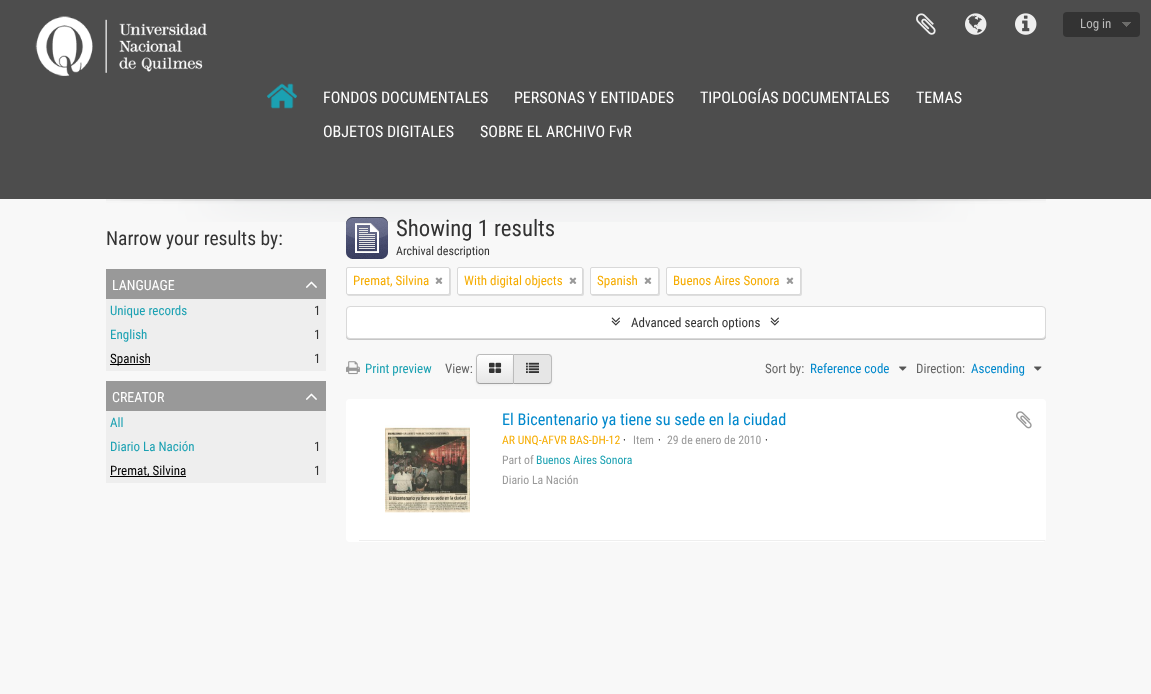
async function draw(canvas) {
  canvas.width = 1151;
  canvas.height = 694;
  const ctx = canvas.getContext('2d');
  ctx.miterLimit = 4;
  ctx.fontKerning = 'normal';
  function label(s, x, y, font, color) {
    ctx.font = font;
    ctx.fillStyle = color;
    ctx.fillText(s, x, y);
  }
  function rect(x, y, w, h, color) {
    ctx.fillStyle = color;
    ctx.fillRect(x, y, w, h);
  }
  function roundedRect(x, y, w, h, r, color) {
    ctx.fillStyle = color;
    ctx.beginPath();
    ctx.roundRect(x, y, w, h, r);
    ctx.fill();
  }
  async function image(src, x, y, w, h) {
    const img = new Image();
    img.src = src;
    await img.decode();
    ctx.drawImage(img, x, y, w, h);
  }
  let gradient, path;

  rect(0, 0, 1151, 694, '#f8f8f8');
  rect(0, 0, 1151, 199, '#4d4d4d');
  await image('assets/img1.png', 35, 16, 173, 60);
  await image('assets/img2.png', 916, 13, 20, 22);
  await image('assets/img3.png', 965, 13, 22, 22);
  await image('assets/img4.png', 1015, 13, 22, 22);
  roundedRect(1063, 12, 77, 25, 4, '#333');
  await image('assets/img5.png', 1122, 22, 9, 5);
  label('Log in', 1080, 28, '13px Roboto Condensed', '#bbb');
  await image('assets/img6.png', 267, 83, 30, 26);
  label('FONDOS DOCUMENTALES', 323, 103, '16px Roboto Condensed', '#fff');
  label('PERSONAS Y ENTIDADES', 514, 103, '16px Roboto Condensed', '#fff');
  label('TIPOLOGÍAS DOCUMENTALES', 700, 103, '16px Roboto Condensed', '#fff');
  label('TEMAS', 916, 103, '16px Roboto Condensed', '#fff');
  label('OBJETOS DIGITALES', 323, 137, '16px Roboto Condensed', '#fff');
  label('SOBRE EL ARCHIVO FvR', 480, 137, '16px Roboto Condensed', '#fff');
  await image('assets/img7.png', 106, 199, 940, 23);
  label('Narrow your results by:', 106, 245, '19.5px Roboto Condensed', '#333');
  rect(106, 269, 220, 30, '#999');
  label('LANGUAGE', 112, 290, '14px Roboto Condensed', '#fff');
  await image('assets/img8.png', 306, 281, 11, 7);
  rect(106, 299, 220, 72, '#eee');
  label('Unique records', 110, 315, '13px Roboto Condensed', '#1ba1b2');
  label('1', 314, 315, '13px Roboto Condensed', '#333');
  label('English', 110, 339, '13px Roboto Condensed', '#1ba1b2');
  label('1', 314, 339, '13px Roboto Condensed', '#333');
  rect(110, 364, 40, 1, '#000');
  label('Spanish', 110, 363, '13px Roboto Condensed', '#000');
  label('1', 314, 363, '13px Roboto Condensed', '#333');
  rect(106, 381, 220, 30, '#999');
  label('CREATOR', 112, 402, '14px Roboto Condensed', '#fff');
  await image('assets/img8.png', 306, 393, 11, 7);
  rect(106, 411, 220, 72, '#eee');
  label('All', 110, 427, '13px Roboto Condensed', '#1ba1b2');
  label('Diario La Nación', 110, 451, '13px Roboto Condensed', '#1ba1b2');
  label('1', 314, 451, '13px Roboto Condensed', '#333');
  rect(110, 476, 76, 1, '#000');
  label('Premat, Silvina', 110, 475, '13px Roboto Condensed', '#000');
  label('1', 314, 475, '13px Roboto Condensed', '#333');
  await image('assets/img9.png', 346, 217, 42, 42);
  label('Showing 1 results', 396, 236, '22.75px Roboto Condensed', '#333');
  label('Archival description', 396, 255, '12px Roboto Condensed', '#333');
  ctx.fillStyle = '#0000001a';
  ctx.filter = 'blur(0.5px)';
  ctx.beginPath();
  ctx.roundRect(347, 268, 104, 28, 2);
  ctx.fill();
  ctx.filter = 'none';
  ctx.fillStyle = '#fff';
  ctx.beginPath();
  ctx.roundRect(346.5, 267.5, 103, 27, 1.5);
  ctx.fill();
  ctx.strokeStyle = '#d9d9d9';
  ctx.stroke();
  label('Premat, Silvina', 353, 285, '13px Roboto Condensed', '#f6ac00');
  await image('assets/img10.png', 435, 277, 8, 7);
  ctx.fillStyle = '#0000001a';
  ctx.filter = 'blur(0.5px)';
  ctx.beginPath();
  ctx.roundRect(458, 268, 126, 28, 2);
  ctx.fill();
  ctx.filter = 'none';
  ctx.fillStyle = '#fff';
  ctx.beginPath();
  ctx.roundRect(457.5, 267.5, 125, 27, 1.5);
  ctx.fill();
  ctx.stroke();
  label('With digital objects', 464, 285, '13px Roboto Condensed', '#f6ac00');
  await image('assets/img10.png', 569, 277, 8, 7);
  ctx.fillStyle = '#0000001a';
  ctx.filter = 'blur(0.5px)';
  ctx.beginPath();
  ctx.roundRect(591, 268, 69, 28, 2);
  ctx.fill();
  ctx.filter = 'none';
  ctx.fillStyle = '#fff';
  ctx.beginPath();
  ctx.roundRect(590.5, 267.5, 68, 27, 1.5);
  ctx.fill();
  ctx.stroke();
  label('Spanish', 597, 285, '13px Roboto Condensed', '#f6ac00');
  await image('assets/img10.png', 644, 277, 8, 7);
  ctx.fillStyle = '#0000001a';
  ctx.filter = 'blur(0.5px)';
  ctx.beginPath();
  ctx.roundRect(667, 268, 135, 28, 2);
  ctx.fill();
  ctx.filter = 'none';
  ctx.fillStyle = '#fff';
  ctx.beginPath();
  ctx.roundRect(666.5, 267.5, 134, 27, 1.5);
  ctx.fill();
  ctx.stroke();
  label('Buenos Aires Sonora', 673, 285, '13px Roboto Condensed', '#f6ac00');
  await image('assets/img10.png', 786, 277, 8, 7);
  ctx.fillStyle = '#00000033';
  ctx.filter = 'blur(0.5px)';
  ctx.beginPath();
  ctx.roundRect(346, 307, 700, 33, 4);
  ctx.fill();
  ctx.filter = 'none';
  ctx.fillStyle = '#fff';
  ctx.beginPath();
  ctx.roundRect(346.5, 306.5, 699, 32, 3.5);
  ctx.fill();
  ctx.stroke();
  await image('assets/img11.png', 611, 317, 9, 9);
  label('Advanced search options', 631, 327, '13px Roboto Condensed', '#333');
  await image('assets/img11.png', 770, 317, 9, 9);
  await image('assets/img12.png', 346, 361, 14, 14);
  label('Print preview', 365, 373, '13px Roboto Condensed', '#1ba1b2');
  label('View:', 445, 373, '13px Roboto Condensed', '#666');
  ctx.fillStyle = '#0000000d';
  ctx.filter = 'blur(1px)';
  ctx.beginPath();
  ctx.roundRect(476, 355, 38, 30, 4);
  ctx.fill();
  ctx.filter = 'none';
  ctx.save();
  ctx.beginPath();
  ctx.roundRect(476, 354, 38, 30, [4, 0, 0, 4]);
  ctx.clip();
  gradient = ctx.createLinearGradient(495, 355, 495, 383);
  gradient.addColorStop(0, '#fff');
  gradient.addColorStop(1, '#e6e6e6');
  ctx.fillStyle = gradient;
  ctx.fillRect(476, 355, 37, 28);
  ctx.restore();
  ctx.fillStyle = '#bbb';
  path = new Path2D('M480 354C479 354 478 354.5 477 355L478 356C478.5 355.5 479 355 480 355H513L514 354Z');
  ctx.fill(path);
  ctx.fillStyle = '#a2a2a2';
  path = new Path2D('M514 384L513 383H480C479 383 478.5 382.5 478 382L477 383C478 383.5 479 384 480 384Z');
  ctx.fill(path);
  ctx.fillStyle = '#bbb';
  path = new Path2D('M476 358V380C476 381 476.5 382 477 383L478 382C477.5 381.5 477 381 477 380V358C477 357 477.5 356.5 478 356L477 355C476.5 356 476 357 476 358Z');
  ctx.fill(path);
  await image('assets/img13.png', 489, 362, 13, 11);
  ctx.fillStyle = '#0000000d';
  ctx.filter = 'blur(1px)';
  ctx.beginPath();
  ctx.roundRect(513, 355, 39, 30, 4);
  ctx.fill();
  ctx.filter = 'none';
  ctx.fillStyle = '#e6e6e6';
  ctx.beginPath();
  ctx.roundRect(513, 354, 39, 30, [0, 4, 4, 0]);
  ctx.fill();
  ctx.fillStyle = '#bbb';
  path = new Path2D('M513 354L514 355H548C549 355 549.5 355.5 550 356L551 355C550 354.5 549 354 548 354Z');
  ctx.fill(path);
  path = new Path2D('M552 380V358C552 357 551.5 356 551 355L550 356C550.5 356.5 551 357 551 358V380C551 381 550.5 381.5 550 382L551 383C551.5 382 552 381 552 380Z');
  ctx.fill(path);
  ctx.fillStyle = '#a2a2a2';
  path = new Path2D('M548 384C549 384 550 383.5 551 383L550 382C549.5 382.5 549 383 548 383H514L513 384Z');
  ctx.fill(path);
  ctx.fillStyle = '#bbb';
  path = new Path2D('M513 354V384L514 383V355Z');
  ctx.fill(path);
  await image('assets/img14.png', 526, 362, 13, 11);
  label('Sort by:', 765, 373, '13px Roboto Condensed', '#666');
  label('Reference code', 810, 373, '13px Roboto Condensed', '#08c');
  await image('assets/img15.png', 899, 366, 8, 5);
  label('Direction:', 916, 373, '13px Roboto Condensed', '#666');
  label('Ascending', 971, 373, '13px Roboto Condensed', '#08c');
  await image('assets/img15.png', 1034, 366, 8, 5);
  roundedRect(346, 399, 700, 143, 4, '#fff');
  rect(359, 540, 686, 1, '#eee');
  await image('assets/img16.png', 385, 425, 85, 88);
  label('El Bicentenario ya tiene su sede en la ciudad', 502, 425, '16.25px Roboto Condensed', '#08c');
  await image('assets/img17.png', 1016, 411, 16, 18);
  label('AR UNQ-AFVR BAS-DH-12', 502, 444, '11.75px Roboto Condensed', '#f6ac00');
  label('·', 623, 444, '11.75px Roboto Condensed', '#000');
  label('Item', 633, 444, '11.75px Roboto Condensed', '#999');
  label('·', 658, 444, '11.75px Roboto Condensed', '#000');
  label('29 de enero de 2010', 667, 444, '11.75px Roboto Condensed', '#999');
  label('·', 765, 444, '11.75px Roboto Condensed', '#000');
  label('Part of', 502, 464, '11.75px Roboto Condensed', '#999');
  label('Buenos Aires Sonora', 536, 464, '11.75px Roboto Condensed', '#1ba1b2');
  label('Diario La Nación', 502, 484, '11.75px Roboto Condensed', '#999');
}

draw(document.querySelector('canvas'));
